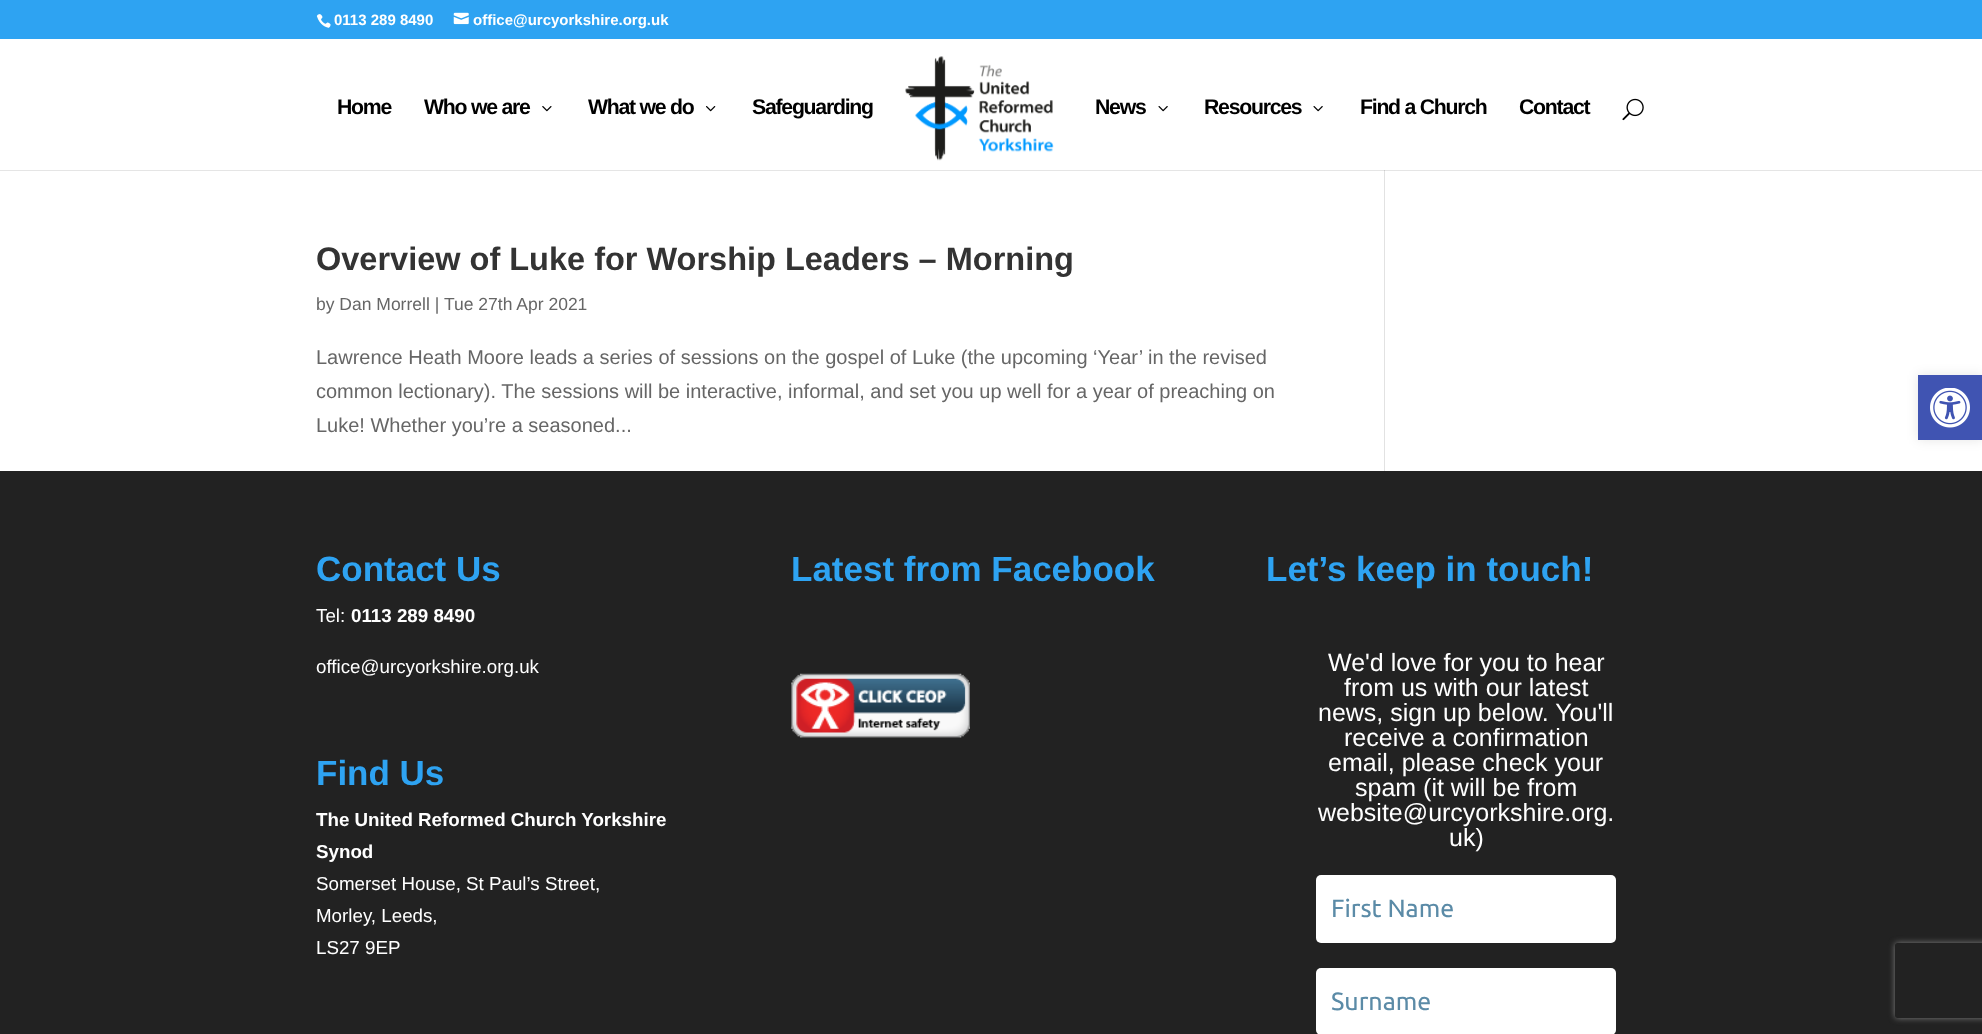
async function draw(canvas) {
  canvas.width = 1982;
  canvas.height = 1034;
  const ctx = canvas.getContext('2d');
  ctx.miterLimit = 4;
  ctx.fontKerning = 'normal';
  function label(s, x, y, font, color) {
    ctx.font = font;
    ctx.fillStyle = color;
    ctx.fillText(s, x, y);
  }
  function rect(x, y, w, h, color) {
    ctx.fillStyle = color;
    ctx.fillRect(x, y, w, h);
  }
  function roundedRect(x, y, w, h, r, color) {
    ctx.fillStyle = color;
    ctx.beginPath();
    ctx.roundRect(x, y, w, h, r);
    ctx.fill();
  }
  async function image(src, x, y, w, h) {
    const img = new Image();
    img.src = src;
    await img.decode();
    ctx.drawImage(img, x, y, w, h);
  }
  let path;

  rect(0, 0, 1982, 1034, '#fff');
  rect(0, 0, 1982, 39, '#2ea3f2');
  await image('assets/img1.png', 316, 14, 15, 14);
  label('0113 289 8490', 334, 25, 'bold 15px Liberation Sans', '#fff');
  await image('assets/img2.png', 453, 12, 16, 13);
  label('office@urcyorkshire.org.uk', 473, 25, 'bold 15px Liberation Sans', '#fff');
  rect(1384, 170, 1, 301, '#e2e2e2');
  ctx.fillStyle = '#0000001a';
  path = new Path2D('M0 170V171H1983V40H1982V170Z');
  ctx.fill(path);
  ctx.letterSpacing = '-1.25px';
  label('Home', 337, 114, 'bold 21.25px Liberation Sans', '#000');
  label('Who we are', 424, 114, 'bold 21.25px Liberation Sans', '#000');
  await image('assets/img3.png', 542, 106, 10, 6);
  label('What we do', 588, 114, 'bold 21.25px Liberation Sans', '#000');
  await image('assets/img4.png', 706, 106, 10, 6);
  label('Safeguarding', 752, 114, 'bold 21.25px Liberation Sans', '#000');
  await image('assets/img5.png', 905, 56, 149, 105);
  label('News', 1095, 114, 'bold 21.25px Liberation Sans', '#000');
  await image('assets/img6.png', 1158, 106, 10, 6);
  label('Resources', 1204, 114, 'bold 21.25px Liberation Sans', '#000');
  await image('assets/img6.png', 1313, 106, 10, 6);
  label('Find a Church', 1360, 114, 'bold 21.25px Liberation Sans', '#000');
  label('Contact', 1519, 114, 'bold 21.25px Liberation Sans', '#000');
  await image('assets/img7.png', 1622, 98, 22, 23);
  ctx.letterSpacing = '0px';
  label('Overview of Luke for Worship Leaders – Morning', 316, 270, 'bold 32.5px Liberation Sans', '#333');
  label('by Dan Morrell |', 316, 310, '17.5px Liberation Sans', '#666');
  label('Tue 27th Apr 2021', 444, 310, '17.5px Liberation Sans', '#666');
  label('Lawrence Heath Moore leads a series of sessions on the gospel of Luke (the upcoming ‘Year’ in the revised', 316, 364, '20px Liberation Sans', '#666');
  label('common lectionary). The sessions will be interactive, informal, and set you up well for a year of preaching on', 316, 398, '20px Liberation Sans', '#666');
  label('Luke! Whether you’re a seasoned...', 316, 432, '20px Liberation Sans', '#666');
  rect(0, 471, 1982, 563, '#222');
  label('Contact Us', 316, 581, 'bold 35px Liberation Sans', '#2ea3f2');
  label('Tel:', 316, 622, '18.75px Liberation Sans', '#fff');
  label('0113 289 8490', 351, 622, 'bold 18.75px Liberation Sans', '#fff');
  label('office@urcyorkshire.org.uk', 316, 673, '18.75px Liberation Sans', '#fff');
  label('Find Us', 316, 785, 'bold 35px Liberation Sans', '#2ea3f2');
  label('The United Reformed Church Yorkshire', 316, 826, 'bold 18.75px Liberation Sans', '#fff');
  label('Synod', 316, 858, 'bold 18.75px Liberation Sans', '#fff');
  label('Somerset House, St Paul’s Street,', 316, 890, '18.75px Liberation Sans', '#fff');
  label('Morley, Leeds,', 316, 922, '18.75px Liberation Sans', '#fff');
  label('LS27 9EP', 316, 954, '18.75px Liberation Sans', '#fff');
  label('Latest from Facebook', 791, 581, 'bold 35px Liberation Sans', '#2ea3f2');
  await image('assets/img8.png', 791, 673, 179, 65);
  label('Let’s keep in touch!', 1266, 581, 'bold 35px Liberation Sans', '#2ea3f2');
  label('We\'d love for you to hear', 1328, 671, '25px Liberation Sans', '#fff');
  label('from us with our latest', 1344, 696, '25px Liberation Sans', '#fff');
  label('news, sign up below. You\'ll', 1318, 721, '25px Liberation Sans', '#fff');
  label('receive a confirmation', 1344, 746, '25px Liberation Sans', '#fff');
  label('email, please check your', 1328, 771, '25px Liberation Sans', '#fff');
  label('spam (it will be from', 1355, 796, '25px Liberation Sans', '#fff');
  label('website@urcyorkshire.org.', 1318, 821, '25px Liberation Sans', '#fff');
  label('uk)', 1449, 846, '25px Liberation Sans', '#fff');
  roundedRect(1316, 875, 300, 68, 5, '#fff');
  label('First Name', 1331, 917, '25px Ubuntu', '#5b8ba7');
  roundedRect(1316, 968, 300, 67, 5, '#fff');
  label('Surname', 1331, 1010, '25px Ubuntu', '#5b8ba7');
  ctx.fillStyle = '#0000001a';
  ctx.filter = 'blur(6px)';
  ctx.beginPath();
  ctx.rect(1918, 375, 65, 65);
  ctx.fill();
  ctx.filter = 'none';
  rect(1918, 375, 64, 65, '#4054b2');
  await image('assets/img9.png', 1930, 388, 40, 40);
  ctx.save();
  path = new Path2D('M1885 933H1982V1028H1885ZM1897.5 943H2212.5C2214 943 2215 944 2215 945.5V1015.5C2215 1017 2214 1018 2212.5 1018H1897.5C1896 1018 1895 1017 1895 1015.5V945.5C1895 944 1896 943 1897.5 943Z');
  ctx.clip(path, 'evenodd');
  ctx.fillStyle = '#808080';
  ctx.filter = 'blur(3px)';
  ctx.beginPath();
  ctx.roundRect(1895, 943, 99, 75, 2.5);
  ctx.fill();
  ctx.filter = 'none';
  ctx.restore();
}

draw(document.querySelector('canvas'));
